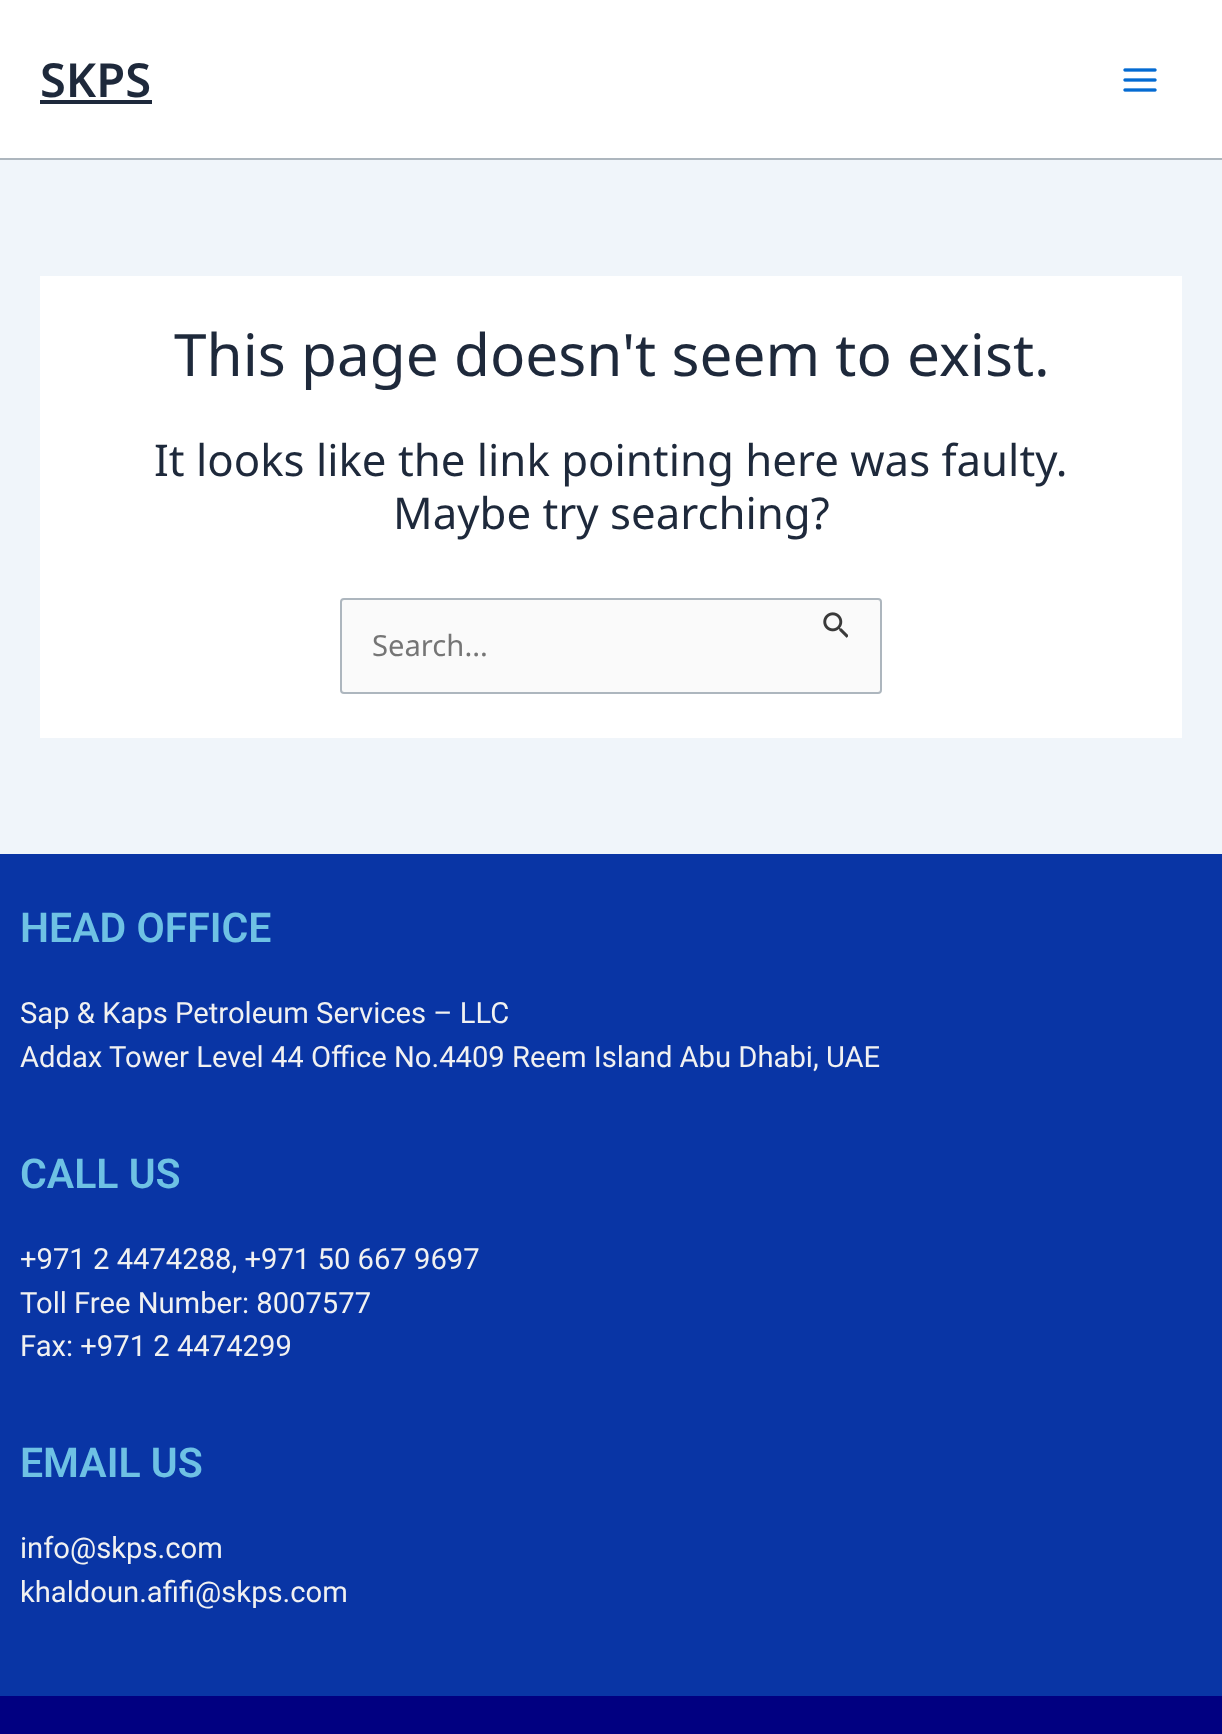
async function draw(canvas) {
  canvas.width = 1222;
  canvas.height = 1734;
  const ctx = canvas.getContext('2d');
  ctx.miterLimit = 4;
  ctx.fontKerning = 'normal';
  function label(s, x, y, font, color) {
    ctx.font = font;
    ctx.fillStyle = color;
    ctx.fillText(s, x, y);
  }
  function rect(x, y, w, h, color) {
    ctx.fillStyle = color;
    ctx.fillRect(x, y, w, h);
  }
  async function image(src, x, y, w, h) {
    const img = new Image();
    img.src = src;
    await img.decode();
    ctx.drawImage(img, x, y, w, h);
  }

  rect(0, 0, 1222, 1734, '#f0f5fa');
  rect(0, 0, 1222, 158, '#fff');
  rect(0, 158, 1222, 2, '#adb6be');
  label('SKPS', 40, 97, '600 47px Noto Sans', '#1e293b');
  rect(40, 100, 112, 4, '#1e293b');
  await image('assets/img1.png', 1123, 68, 34, 24);
  rect(40, 276, 1142, 462, '#fff');
  label('This page doesn\'t seem to exist.', 174, 376, '58.5px Noto Sans', '#1e293b');
  label('It looks like the link pointing here was faulty.', 154, 476, '43.75px Noto Sans', '#1e293b');
  label('Maybe try searching?', 393, 529, '43.75px Noto Sans', '#1e293b');
  ctx.fillStyle = '#fafafa';
  ctx.beginPath();
  ctx.roundRect(341, 599, 540, 94, 3);
  ctx.fill();
  ctx.strokeStyle = '#adb6be';
  ctx.lineWidth = 2;
  ctx.stroke();
  await image('assets/img2.png', 823, 612, 25, 26);
  label('Search...', 372, 656, '29.2px Noto Sans', '#757575');
  rect(0, 854, 1222, 842, '#0935a5');
  label('HEAD OFFICE', 20, 942, '600 41px Roboto', '#6ec1e4');
  label('Sap & Kaps Petroleum Services – LLC', 20, 1023, '29.2px Roboto', '#f1f1f1');
  label('Addax Tower Level 44 Office No.4409 Reem Island Abu Dhabi, UAE', 20, 1067, '29.2px Roboto', '#f1f1f1');
  label('CALL US', 20, 1188, '600 41px Roboto', '#6ec1e4');
  label('+971 2 4474288, +971 50 667 9697', 20, 1269, '29.2px Roboto', '#f1f1f1');
  label('Toll Free Number: 8007577', 20, 1313, '29.2px Roboto', '#f1f1f1');
  label('Fax: +971 2 4474299', 20, 1356, '29.2px Roboto', '#f1f1f1');
  label('EMAIL US', 20, 1477, '600 41px Roboto', '#6ec1e4');
  label('info@skps.com', 20, 1558, '29.2px Roboto', '#f1f1f1');
  label('khaldoun.afifi@skps.com', 20, 1602, '29.2px Roboto', '#f1f1f1');
  rect(0, 1696, 1222, 38, '#010081');
}

draw(document.querySelector('canvas'));
